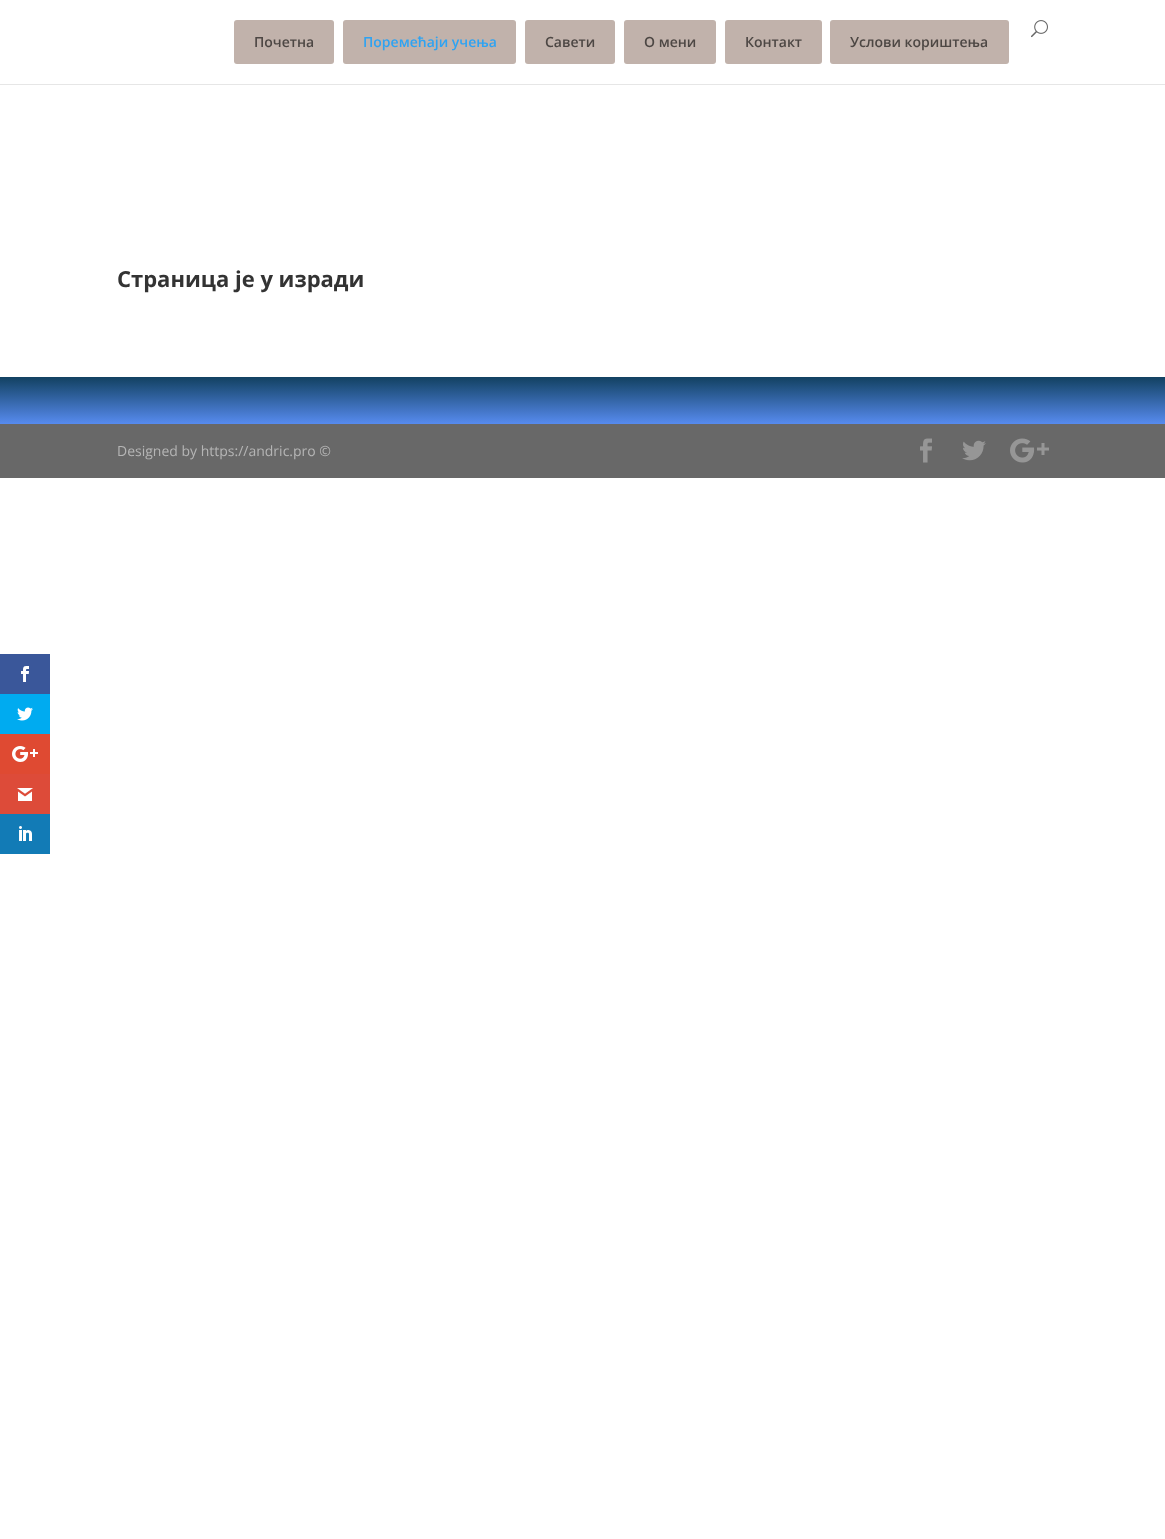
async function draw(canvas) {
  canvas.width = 1165;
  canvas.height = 1539;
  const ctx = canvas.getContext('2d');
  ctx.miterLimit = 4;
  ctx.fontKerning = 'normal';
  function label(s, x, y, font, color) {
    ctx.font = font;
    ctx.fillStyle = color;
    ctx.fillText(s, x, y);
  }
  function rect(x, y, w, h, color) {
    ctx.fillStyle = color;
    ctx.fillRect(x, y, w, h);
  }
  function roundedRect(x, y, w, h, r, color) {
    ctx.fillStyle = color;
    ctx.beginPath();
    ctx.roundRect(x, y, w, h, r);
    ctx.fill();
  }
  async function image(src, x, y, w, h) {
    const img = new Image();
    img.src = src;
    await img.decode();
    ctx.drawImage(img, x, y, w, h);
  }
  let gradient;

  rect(0, 0, 1165, 1539, '#fff');
  rect(0, 84, 1165, 1, '#e6e6e6');
  await image('assets/img1.png', 1031, 20, 17, 18);
  roundedRect(234, 20, 100, 44, 3, '#c1b2ab');
  label('Почетна', 254, 47, '600 14px Open Sans', '#4d4744');
  roundedRect(343, 20, 173, 44, 3, '#c1b2ab');
  label('Поремећаји учења', 363, 47, '600 14px Open Sans', '#2ea3f2');
  roundedRect(525, 20, 90, 44, 3, '#c1b2ab');
  label('Савети', 545, 47, '600 14px Open Sans', '#4d4744');
  roundedRect(624, 20, 92, 44, 3, '#c1b2ab');
  label('О мени', 644, 47, '600 14px Open Sans', '#4d4744');
  roundedRect(725, 20, 97, 44, 3, '#c1b2ab');
  label('Контакт', 745, 47, '600 14px Open Sans', '#4d4744');
  roundedRect(830, 20, 179, 44, 3, '#c1b2ab');
  label('Услови кориштења', 850, 47, '600 14px Open Sans', '#4d4744');
  label('Страница је у изради', 117, 287, 'bold 22px Open Sans', '#333');
  gradient = ctx.createLinearGradient(583, 377, 583, 424);
  gradient.addColorStop(0, '#124161');
  gradient.addColorStop(1, '#578bef');
  ctx.fillStyle = gradient;
  ctx.fillRect(0, 377, 1165, 47);
  rect(0, 424, 1165, 54, '#686868');
  label('Designed by https://andric.pro ©', 117, 456, '14px Open Sans', '#b5b5b5');
  await image('assets/img2.png', 920, 438, 12, 25);
  await image('assets/img3.png', 962, 440, 24, 21);
  await image('assets/img4.png', 1010, 438, 39, 25);
  rect(0, 654, 50, 40, '#3a579a');
  await image('assets/img5.png', 21, 666, 8, 16);
  rect(0, 694, 50, 40, '#00abf0');
  await image('assets/img6.png', 17, 707, 16, 14);
  rect(0, 734, 50, 40, '#df4a32');
  await image('assets/img7.png', 12, 746, 26, 16);
  rect(0, 774, 50, 40, '#dd4b39');
  await image('assets/img8.png', 17, 788, 16, 13);
  rect(0, 814, 50, 40, '#127bb6');
  await image('assets/img9.png', 19, 826, 13, 15);
}

draw(document.querySelector('canvas'));
